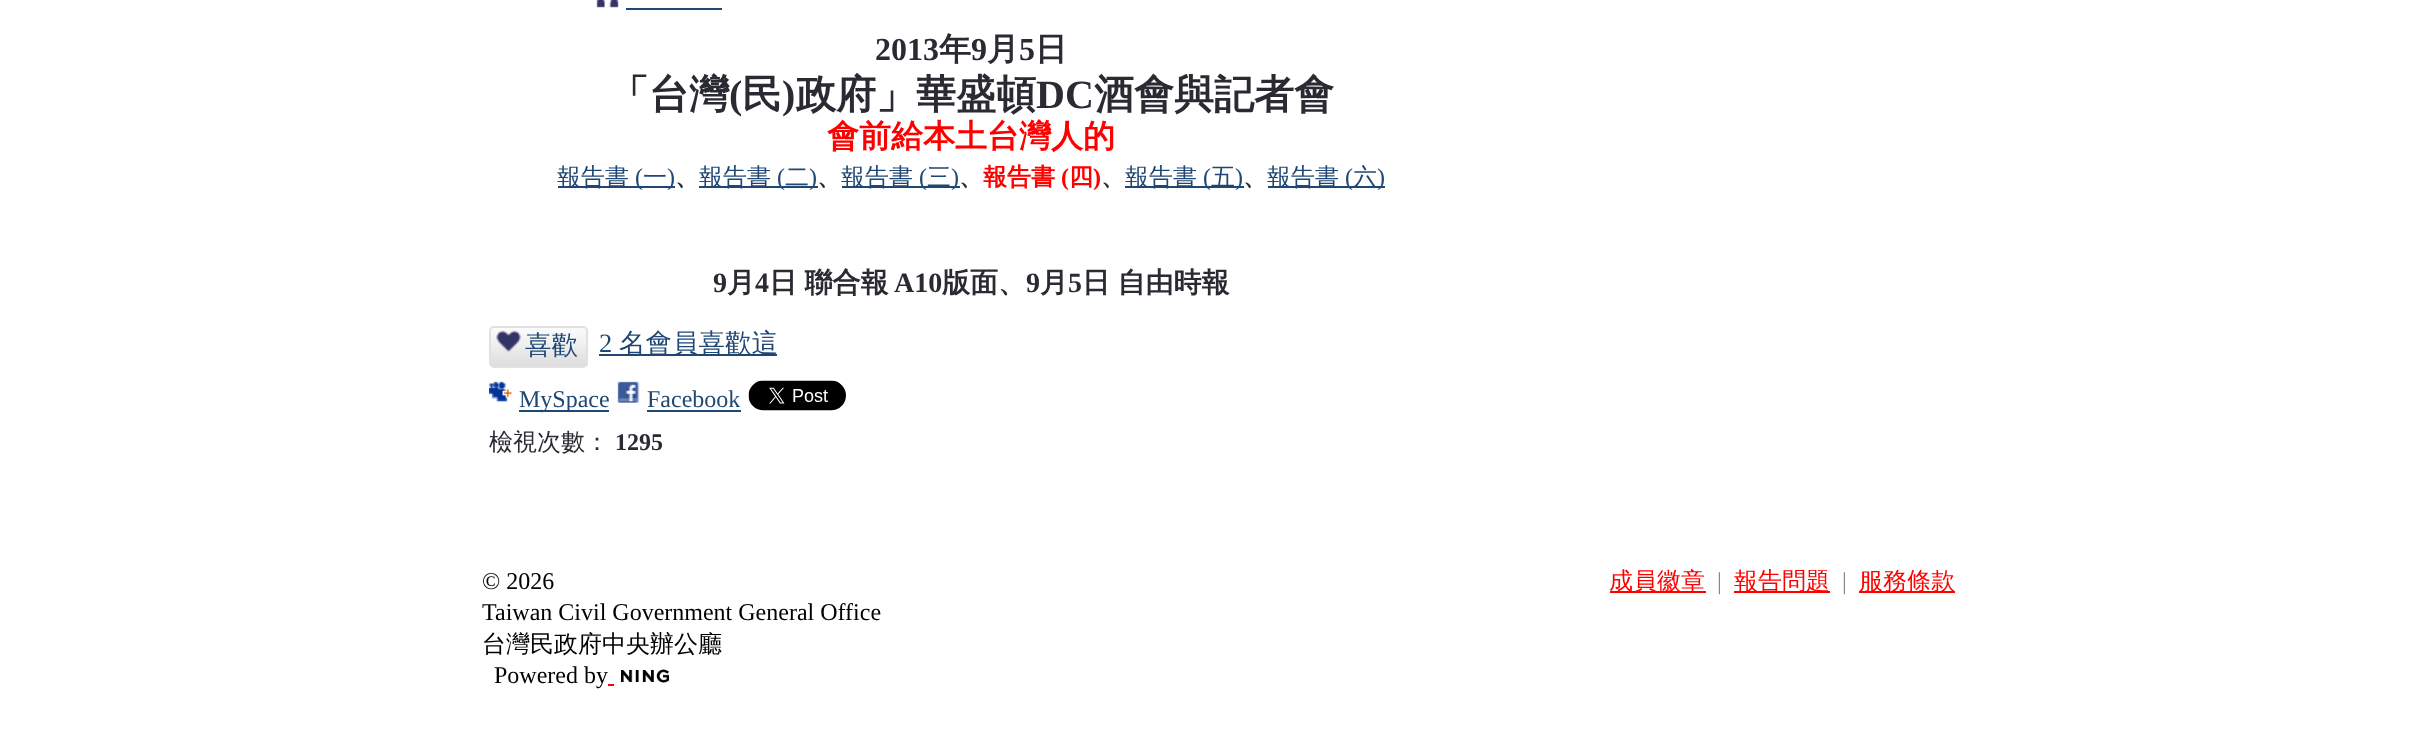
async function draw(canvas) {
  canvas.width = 2436;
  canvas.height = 745;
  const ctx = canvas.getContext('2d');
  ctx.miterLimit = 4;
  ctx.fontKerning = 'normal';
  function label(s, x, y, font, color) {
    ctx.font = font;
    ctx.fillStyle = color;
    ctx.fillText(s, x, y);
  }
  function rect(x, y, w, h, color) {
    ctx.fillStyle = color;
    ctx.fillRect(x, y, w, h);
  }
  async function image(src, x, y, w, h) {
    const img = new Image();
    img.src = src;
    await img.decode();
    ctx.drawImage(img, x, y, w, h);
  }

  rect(0, 0, 2436, 745, '#fff');
  await image('assets/img1.png', 596, 0, 23, 8);
  rect(626, 8, 96, 2, '#1f4774');
  label('2013', 875, 60, 'bold 32px Liberation Serif', '#2a2a33');
  label('年', 939, 60, 'bold 32px WenQuanYi Zen Hei', '#2a2a33');
  label('9', 971, 60, 'bold 32px Liberation Serif', '#2a2a33');
  label('月', 987, 60, 'bold 32px WenQuanYi Zen Hei', '#2a2a33');
  label('5', 1019, 60, 'bold 32px Liberation Serif', '#2a2a33');
  label('日', 1035, 60, 'bold 32px WenQuanYi Zen Hei', '#2a2a33');
  label('「台灣', 609, 108, 'bold 40px WenQuanYi Zen Hei', '#2a2a33');
  label('(', 729, 108, 'bold 40px Liberation Serif', '#2a2a33');
  label('民', 742, 108, 'bold 40px WenQuanYi Zen Hei', '#2a2a33');
  label(')', 782, 108, 'bold 40px Liberation Serif', '#2a2a33');
  label('政府」華盛頓', 796, 108, 'bold 40px WenQuanYi Zen Hei', '#2a2a33');
  label('DC', 1036, 108, 'bold 40px Liberation Serif', '#2a2a33');
  label('酒會與記者會', 1094, 108, 'bold 40px WenQuanYi Zen Hei', '#2a2a33');
  label('會前給本土台灣人的', 827, 147, 'bold 32px WenQuanYi Zen Hei', '#f00');
  rect(558, 186, 117, 2, '#1f4774');
  label('報告書', 557, 185, '500 24px WenQuanYi Zen Hei', '#1f4774');
  label('(', 635, 185, '24px Liberation Serif', '#1f4774');
  label('一', 643, 185, '500 24px WenQuanYi Zen Hei', '#1f4774');
  label(')', 667, 185, '24px Liberation Serif', '#1f4774');
  rect(699, 186, 119, 2, '#1f4774');
  label('報告書', 699, 185, '500 24px WenQuanYi Zen Hei', '#1f4774');
  label('(', 777, 185, '24px Liberation Serif', '#1f4774');
  label('二', 785, 185, '500 24px WenQuanYi Zen Hei', '#1f4774');
  label(')', 809, 185, '24px Liberation Serif', '#1f4774');
  rect(842, 186, 118, 2, '#1f4774');
  label('報告書', 841, 185, '500 24px WenQuanYi Zen Hei', '#1f4774');
  label('(', 919, 185, '24px Liberation Serif', '#1f4774');
  label('三', 927, 185, '500 24px WenQuanYi Zen Hei', '#1f4774');
  label(')', 951, 185, '24px Liberation Serif', '#1f4774');
  label('報告書', 983, 185, 'bold 24px WenQuanYi Zen Hei', '#f00');
  label('(', 1061, 185, 'bold 24px Liberation Serif', '#f00');
  label('四', 1069, 185, 'bold 24px WenQuanYi Zen Hei', '#f00');
  label(')', 1093, 185, 'bold 24px Liberation Serif', '#f00');
  rect(1125, 186, 119, 2, '#1f4774');
  label('報告書', 1125, 185, '500 24px WenQuanYi Zen Hei', '#1f4774');
  label('(', 1203, 185, '24px Liberation Serif', '#1f4774');
  label('五', 1211, 185, '500 24px WenQuanYi Zen Hei', '#1f4774');
  label(')', 1235, 185, '24px Liberation Serif', '#1f4774');
  rect(1268, 186, 117, 2, '#1f4774');
  label('報告書', 1267, 185, '500 24px WenQuanYi Zen Hei', '#1f4774');
  label('(', 1345, 185, '24px Liberation Serif', '#1f4774');
  label('六', 1353, 185, '500 24px WenQuanYi Zen Hei', '#1f4774');
  label(')', 1377, 185, '24px Liberation Serif', '#1f4774');
  label('、', 675, 185, 'bold 24px WenQuanYi Zen Hei', '#2a2a33');
  label('、', 817, 185, 'bold 24px WenQuanYi Zen Hei', '#2a2a33');
  label('、', 959, 185, 'bold 24px WenQuanYi Zen Hei', '#2a2a33');
  label('、', 1101, 185, 'bold 24px WenQuanYi Zen Hei', '#2a2a33');
  label('、', 1243, 185, 'bold 24px WenQuanYi Zen Hei', '#2a2a33');
  label('9', 713, 292, 'bold 28px Liberation Serif', '#2a2a33');
  label('月', 727, 292, 'bold 28px WenQuanYi Zen Hei', '#2a2a33');
  label('4', 755, 292, 'bold 28px Liberation Serif', '#2a2a33');
  ctx.wordSpacing = '-1px';
  label('日 聯合報', 769, 292, 'bold 28px WenQuanYi Zen Hei', '#2a2a33');
  ctx.wordSpacing = '0px';
  label('A10', 894, 292, 'bold 28px Liberation Serif', '#2a2a33');
  label('版面、', 942, 292, 'bold 28px WenQuanYi Zen Hei', '#2a2a33');
  label('9', 1026, 292, 'bold 28px Liberation Serif', '#2a2a33');
  label('月', 1040, 292, 'bold 28px WenQuanYi Zen Hei', '#2a2a33');
  label('5', 1068, 292, 'bold 28px Liberation Serif', '#2a2a33');
  ctx.wordSpacing = '-1px';
  label('日 自由時報', 1082, 292, 'bold 28px WenQuanYi Zen Hei', '#2a2a33');
  await image('assets/img2.png', 489, 328, 99, 38);
  ctx.beginPath();
  ctx.roundRect(490, 327, 97, 40, 4);
  ctx.strokeStyle = '#e1e1e1';
  ctx.lineWidth = 2;
  ctx.stroke();
  await image('assets/img3.png', 496, 330, 25, 23);
  ctx.wordSpacing = '0px';
  label('喜歡', 525, 354, '500 26.5px WenQuanYi Zen Hei', '#1f4774');
  label('2', 599, 352, '26.5px Liberation Serif', '#1f4774');
  rect(599, 354, 178, 2, '#1f4774');
  label('名會員喜歡這', 619, 352, '500 26.5px WenQuanYi Zen Hei', '#1f4774');
  await image('assets/img4.png', 489, 381, 23, 21);
  rect(519, 410, 90, 2, '#1f4774');
  label('MySpace', 519, 407, '24px Liberation Serif', '#1f4774');
  await image('assets/img5.png', 617, 381, 23, 22);
  label('Facebook', 647, 407, '24px Liberation Serif', '#1f4774');
  rect(647, 410, 94, 2, '#1f4774');
  await image('assets/img6.png', 748, 380, 98, 31);
  label('檢視次數：', 489, 450, '500 24px WenQuanYi Zen Hei', '#2a2a33');
  label('1295', 615, 450, 'bold 24px Liberation Serif', '#2a2a33');
  label('© 2026', 482, 589, '24px Liberation Serif', '#000');
  label('Taiwan Civil Government General Office', 482, 620, '24px Liberation Serif', '#000');
  label('台灣民政府中央辦公廳', 482, 652, '500 24px WenQuanYi Zen Hei', '#000');
  label('Powered by', 494, 683, '24px Liberation Serif', '#000');
  await image('assets/img7.png', 621, 669, 48, 14);
  rect(608, 684, 6, 2, '#f00');
  rect(1610, 591, 96, 2, '#f00');
  label('成員徽章', 1609, 589, '500 24px WenQuanYi Zen Hei', '#f00');
  label('|', 1717, 589, '24px Liberation Serif', '#888');
  rect(1734, 591, 96, 2, '#f00');
  label('報告問題', 1734, 589, '500 24px WenQuanYi Zen Hei', '#f00');
  label('|', 1842, 589, '24px Liberation Serif', '#888');
  rect(1859, 591, 96, 2, '#f00');
  label('服務條款', 1859, 589, '500 24px WenQuanYi Zen Hei', '#f00');
}

draw(document.querySelector('canvas'));
